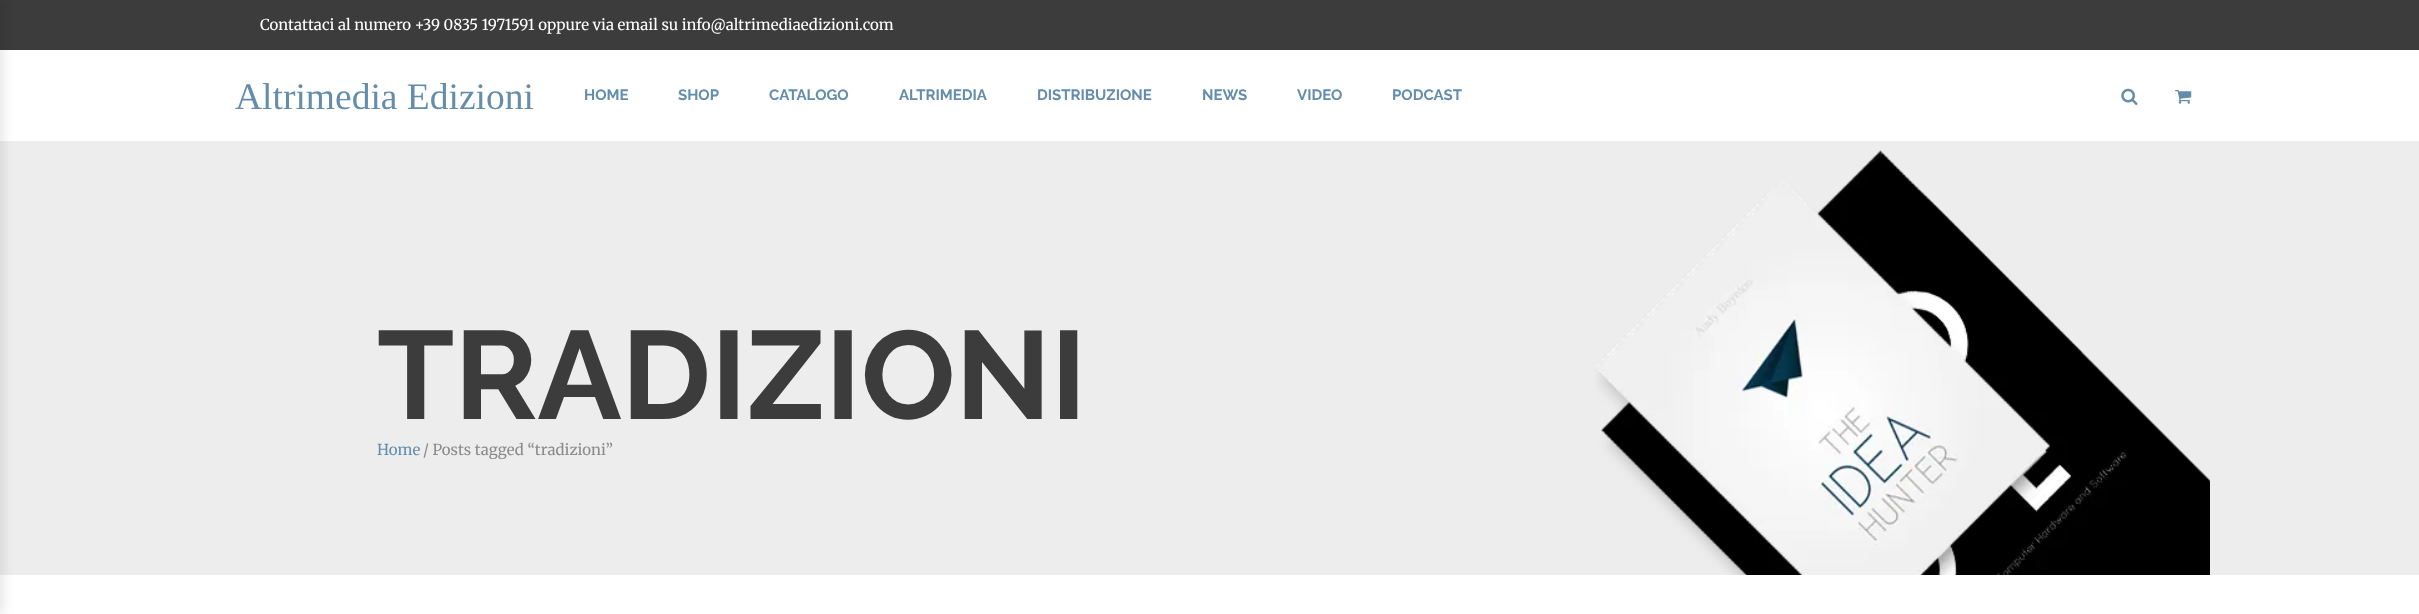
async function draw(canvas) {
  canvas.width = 2419;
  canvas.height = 614;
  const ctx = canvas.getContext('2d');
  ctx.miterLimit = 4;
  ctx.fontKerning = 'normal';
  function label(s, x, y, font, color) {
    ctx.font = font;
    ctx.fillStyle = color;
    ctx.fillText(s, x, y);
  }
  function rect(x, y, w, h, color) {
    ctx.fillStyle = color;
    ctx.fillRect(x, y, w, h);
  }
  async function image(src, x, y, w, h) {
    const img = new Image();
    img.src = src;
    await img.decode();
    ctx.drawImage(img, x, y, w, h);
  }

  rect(0, 0, 2419, 614, '#fff');
  rect(0, 0, 2419, 50, '#3c3c3c');
  rect(0, 141, 2419, 434, '#ededed');
  ctx.fillStyle = '#0000001a';
  ctx.filter = 'blur(6px)';
  ctx.beginPath();
  ctx.rect(-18, 0, 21, 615);
  ctx.fill();
  ctx.filter = 'none';
  label('Contattaci al numero +39 0835 1971591 oppure via email su info@altrimediaedizioni.com', 260, 30, '15px Merriweather', '#fff');
  label('Altrimedia Edizioni', 235, 109, '37.5px Liberation Serif', '#648dab');
  label('HOME', 584, 100, 'bold 15px Raleway', '#648dab');
  label('SHOP', 678, 100, 'bold 15px Raleway', '#648dab');
  label('CATALOGO', 769, 100, 'bold 15px Raleway', '#648dab');
  label('ALTRIMEDIA', 899, 100, 'bold 15px Raleway', '#648dab');
  label('DISTRIBUZIONE', 1037, 100, 'bold 15px Raleway', '#648dab');
  label('NEWS', 1202, 100, 'bold 15px Raleway', '#648dab');
  label('VIDEO', 1297, 100, 'bold 15px Raleway', '#648dab');
  label('PODCAST', 1392, 100, 'bold 15px Raleway', '#648dab');
  await image('assets/img1.png', 2121, 88, 17, 17);
  await image('assets/img2.png', 2175, 90, 17, 14);
  await image('assets/img3.png', 1595, 150, 615, 425);
  label('TRADIZIONI', 377, 419, 'bold 125px Raleway', '#3c3c3c');
  label('Home', 377, 455, '15px Merriweather', '#648dab');
  label('/ Posts tagged “tradizioni”', 423, 455, '15px Merriweather', '#8b8b8b');
}

draw(document.querySelector('canvas'));
